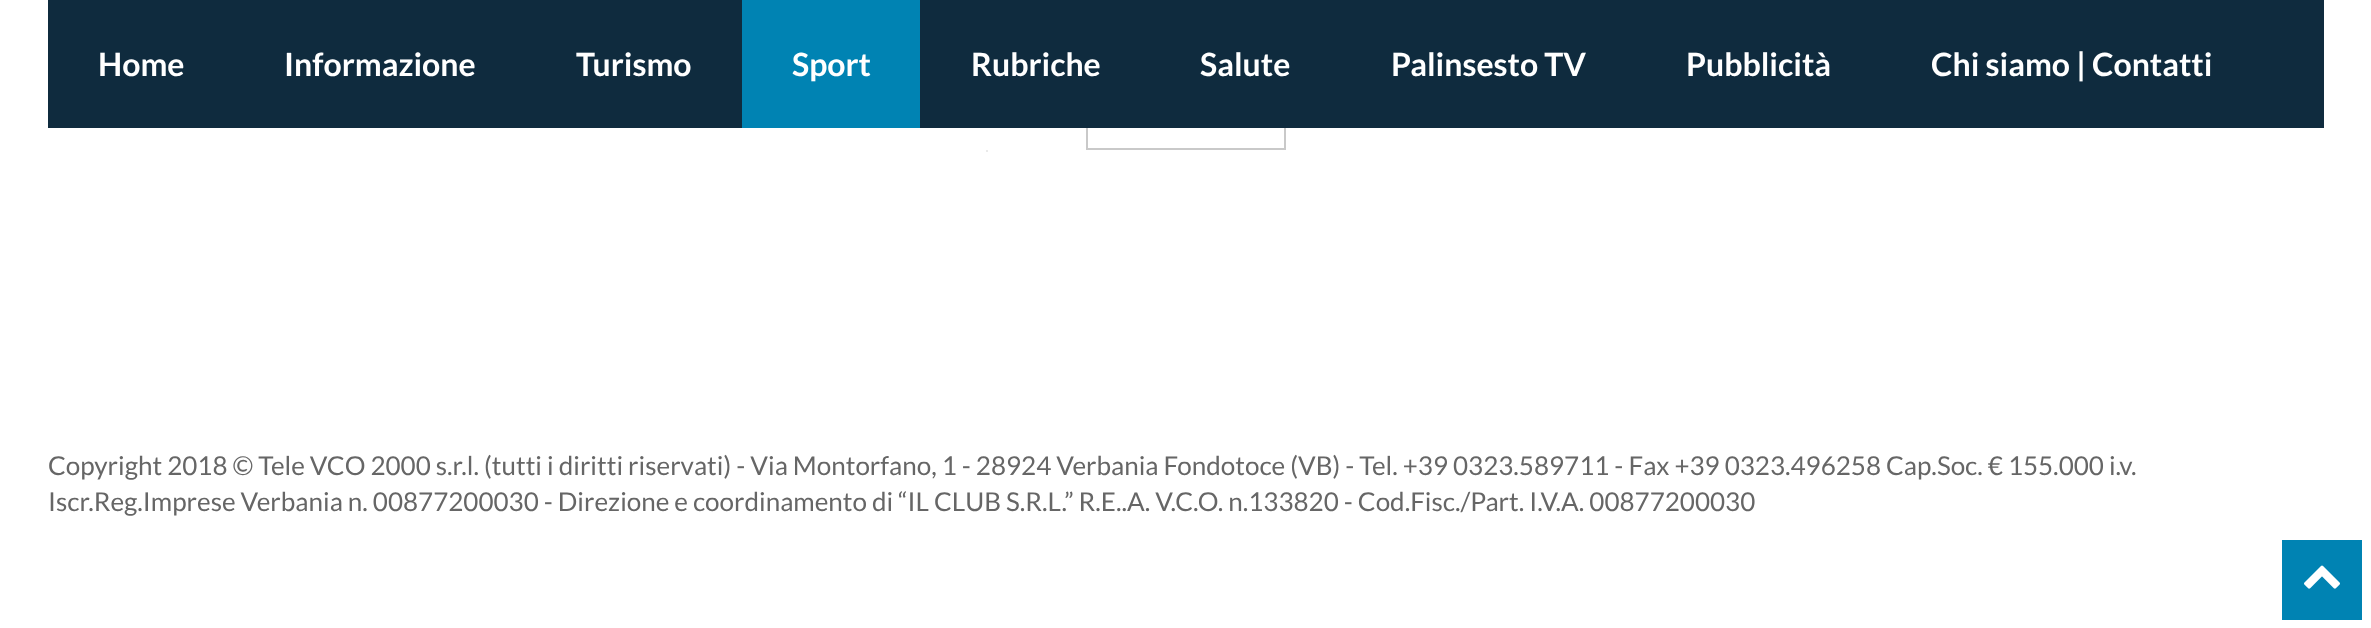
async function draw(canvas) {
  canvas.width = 2371;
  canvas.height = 628;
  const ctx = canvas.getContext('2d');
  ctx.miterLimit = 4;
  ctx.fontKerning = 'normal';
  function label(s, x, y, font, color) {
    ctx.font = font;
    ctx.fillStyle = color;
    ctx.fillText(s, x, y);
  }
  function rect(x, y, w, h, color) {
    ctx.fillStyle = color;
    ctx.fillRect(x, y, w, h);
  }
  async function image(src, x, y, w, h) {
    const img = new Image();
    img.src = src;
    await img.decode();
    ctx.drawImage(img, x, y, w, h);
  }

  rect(0, 0, 2371, 628, '#fff');
  ctx.strokeStyle = '#c9c9c9';
  ctx.lineWidth = 2;
  ctx.strokeRect(1087, 91, 198, 58);
  rect(48, 0, 2276, 128, '#0f2b3e');
  label('Home', 98, 76, 'bold 32px Lato', '#fff');
  label('Informazione', 284, 76, 'bold 32px Lato', '#fff');
  label('Turismo', 576, 76, 'bold 32px Lato', '#fff');
  rect(742, 0, 178, 128, '#0083b3');
  label('Sport', 792, 76, 'bold 32px Lato', '#fff');
  label('Rubriche', 971, 76, 'bold 32px Lato', '#fff');
  label('Salute', 1200, 76, 'bold 32px Lato', '#fff');
  label('Palinsesto TV', 1391, 76, 'bold 32px Lato', '#fff');
  label('Pubblicità', 1686, 76, 'bold 32px Lato', '#fff');
  label('Chi siamo | Contatti', 1931, 76, 'bold 32px Lato', '#fff');
  rect(986, 150, 2, 2, '#eaeaea');
  label('Copyright 2018 © Tele VCO 2000 s.r.l. (tutti i diritti riservati) - Via Montorfano, 1 - 28924 Verbania Fondotoce (VB) - Tel. +39 0323.589711 - Fax +39 0323.496258 Cap.Soc. € 155.000 i.v.', 48, 475, '26px Lato', '#666');
  label('Iscr.Reg.Imprese Verbania n. 00877200030 - Direzione e coordinamento di “IL CLUB S.R.L.” R.E..A. V.C.O. n.133820 - Cod.Fisc./Part. I.V.A. 00877200030', 48, 511, '26px Lato', '#666');
  rect(2282, 540, 80, 80, '#0083b3');
  await image('assets/img1.png', 2304, 565, 36, 24);
}

draw(document.querySelector('canvas'));
